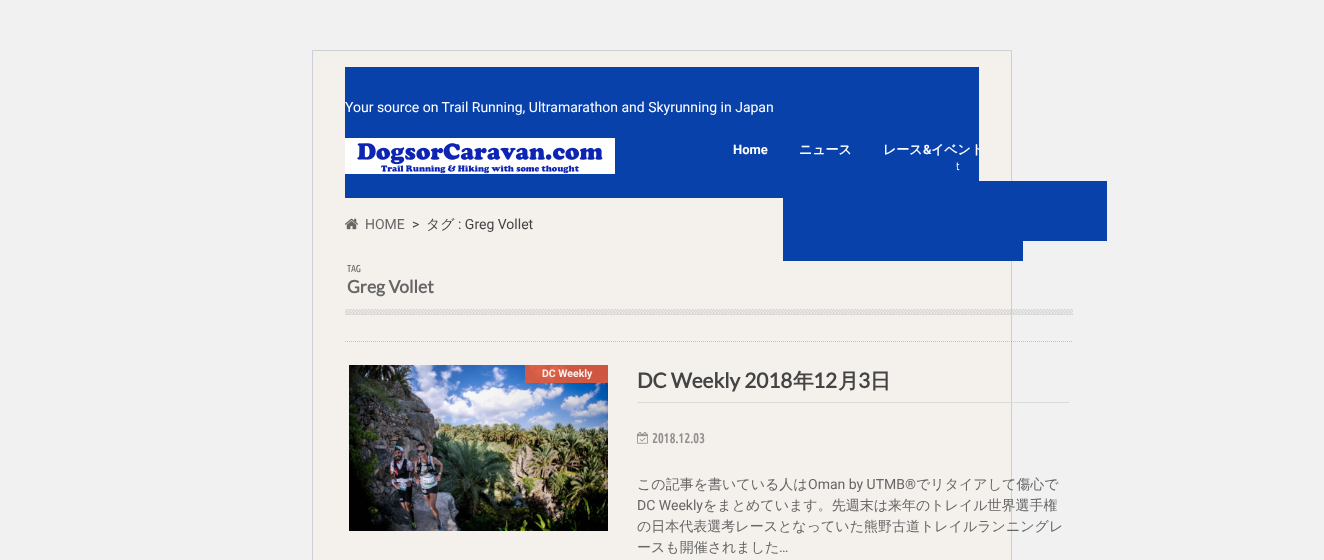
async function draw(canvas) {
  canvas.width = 1324;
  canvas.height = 560;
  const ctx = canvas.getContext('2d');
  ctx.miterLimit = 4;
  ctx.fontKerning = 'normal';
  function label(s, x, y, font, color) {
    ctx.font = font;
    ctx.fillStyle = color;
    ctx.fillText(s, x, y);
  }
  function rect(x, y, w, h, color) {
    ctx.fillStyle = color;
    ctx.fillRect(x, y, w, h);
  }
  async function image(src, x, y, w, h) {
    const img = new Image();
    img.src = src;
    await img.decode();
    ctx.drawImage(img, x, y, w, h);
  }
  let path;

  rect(0, 0, 1324, 560, '#f1f1f1');
  ctx.fillStyle = '#f4f1ed';
  ctx.beginPath();
  ctx.rect(312.5, 50.5, 699, 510);
  ctx.fill();
  ctx.strokeStyle = '#ccd0d4';
  ctx.stroke();
  rect(345, 67, 634, 131, '#0941ab');
  label('Your source on Trail Running, Ultramarathon and Skyrunning in Japan', 345, 112, '14px Roboto', '#fff');
  await image('assets/img1.png', 345, 138, 270, 36);
  label('Home', 733, 154, 'bold 13px Roboto', '#fff');
  label('t', 956, 170, '11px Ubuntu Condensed', '#fff');
  rect(956, 167, 1, 2, '#0941ab');
  label('ニュース', 799, 154, 'bold 13px WenQuanYi Zen Hei', '#fff');
  rect(783, 181, 240, 80, '#0941ab');
  label('レース', 883, 154, 'bold 13px WenQuanYi Zen Hei', '#fff');
  label('&', 923, 154, 'bold 13px Roboto', '#fff');
  label('イベント', 931, 154, 'bold 13px WenQuanYi Zen Hei', '#fff');
  rect(1023, 181, 84, 60, '#0941ab');
  await image('assets/img2.png', 345, 218, 13, 12);
  label('HOME', 365, 229, '14px Roboto', '#666');
  label('>', 412, 229, '14px Roboto', '#444');
  label('タグ', 426, 229, '500 14px WenQuanYi Zen Hei', '#444');
  label(': Greg Vollet', 458, 229, '14px Roboto', '#444');
  await image('assets/img3.png', 345, 309, 728, 5);
  rect(345, 314, 728, 1, '#dadada');
  label('TAG', 347, 272, '10px Ubuntu Condensed', '#666');
  label('Greg Vollet', 347, 293, 'bold 17.5px Lato', '#666');
  path = new Path2D('M345 341.5H1073');
  ctx.strokeStyle = '#00000033';
  ctx.setLineDash([1, 1]);
  ctx.stroke(path);
  await image('assets/img4.png', 349, 365, 259, 166);
  rect(525, 365, 83, 18, '#e55937e6');
  label('DC Weekly', 542, 377, 'bold 10.5px Roboto', '#fbefec');
  rect(637, 402, 432, 1, '#dadada');
  label('DC Weekly 2018', 637, 388, 'bold 20.75px Lato', '#444');
  label('年', 793, 388, 'bold 20.75px WenQuanYi Zen Hei', '#444');
  label('12', 813, 388, 'bold 20.75px Lato', '#444');
  label('月', 838, 388, 'bold 20.75px WenQuanYi Zen Hei', '#444');
  label('3', 858, 388, 'bold 20.75px Lato', '#444');
  label('日', 870, 388, 'bold 20.75px WenQuanYi Zen Hei', '#444');
  await image('assets/img5.png', 637, 432, 11, 12);
  label('2018.12.03', 652, 443, 'bold 13.5px Ubuntu Condensed', '#91908f');
  label('この記事を書いている人は', 637, 489, '500 14px WenQuanYi Zen Hei', '#666');
  label('Oman by UTMB®︎', 808, 489, '14px Roboto', '#666');
  label('でリタイアして傷心で', 916, 489, '500 14px WenQuanYi Zen Hei', '#666');
  label('DC Weekly', 637, 510, '14px Roboto', '#666');
  label('をまとめています。先週末は来年のトレイル世界選手権', 703, 510, '500 14px WenQuanYi Zen Hei', '#666');
  label('の日本代表選考レースとなっていた熊野古道トレイルランニングレ', 637, 531, '500 14px WenQuanYi Zen Hei', '#666');
  label('ースも開催されました', 637, 552, '500 14px WenQuanYi Zen Hei', '#666');
  label('…', 779, 552, '14px Roboto', '#666');
}

draw(document.querySelector('canvas'));
